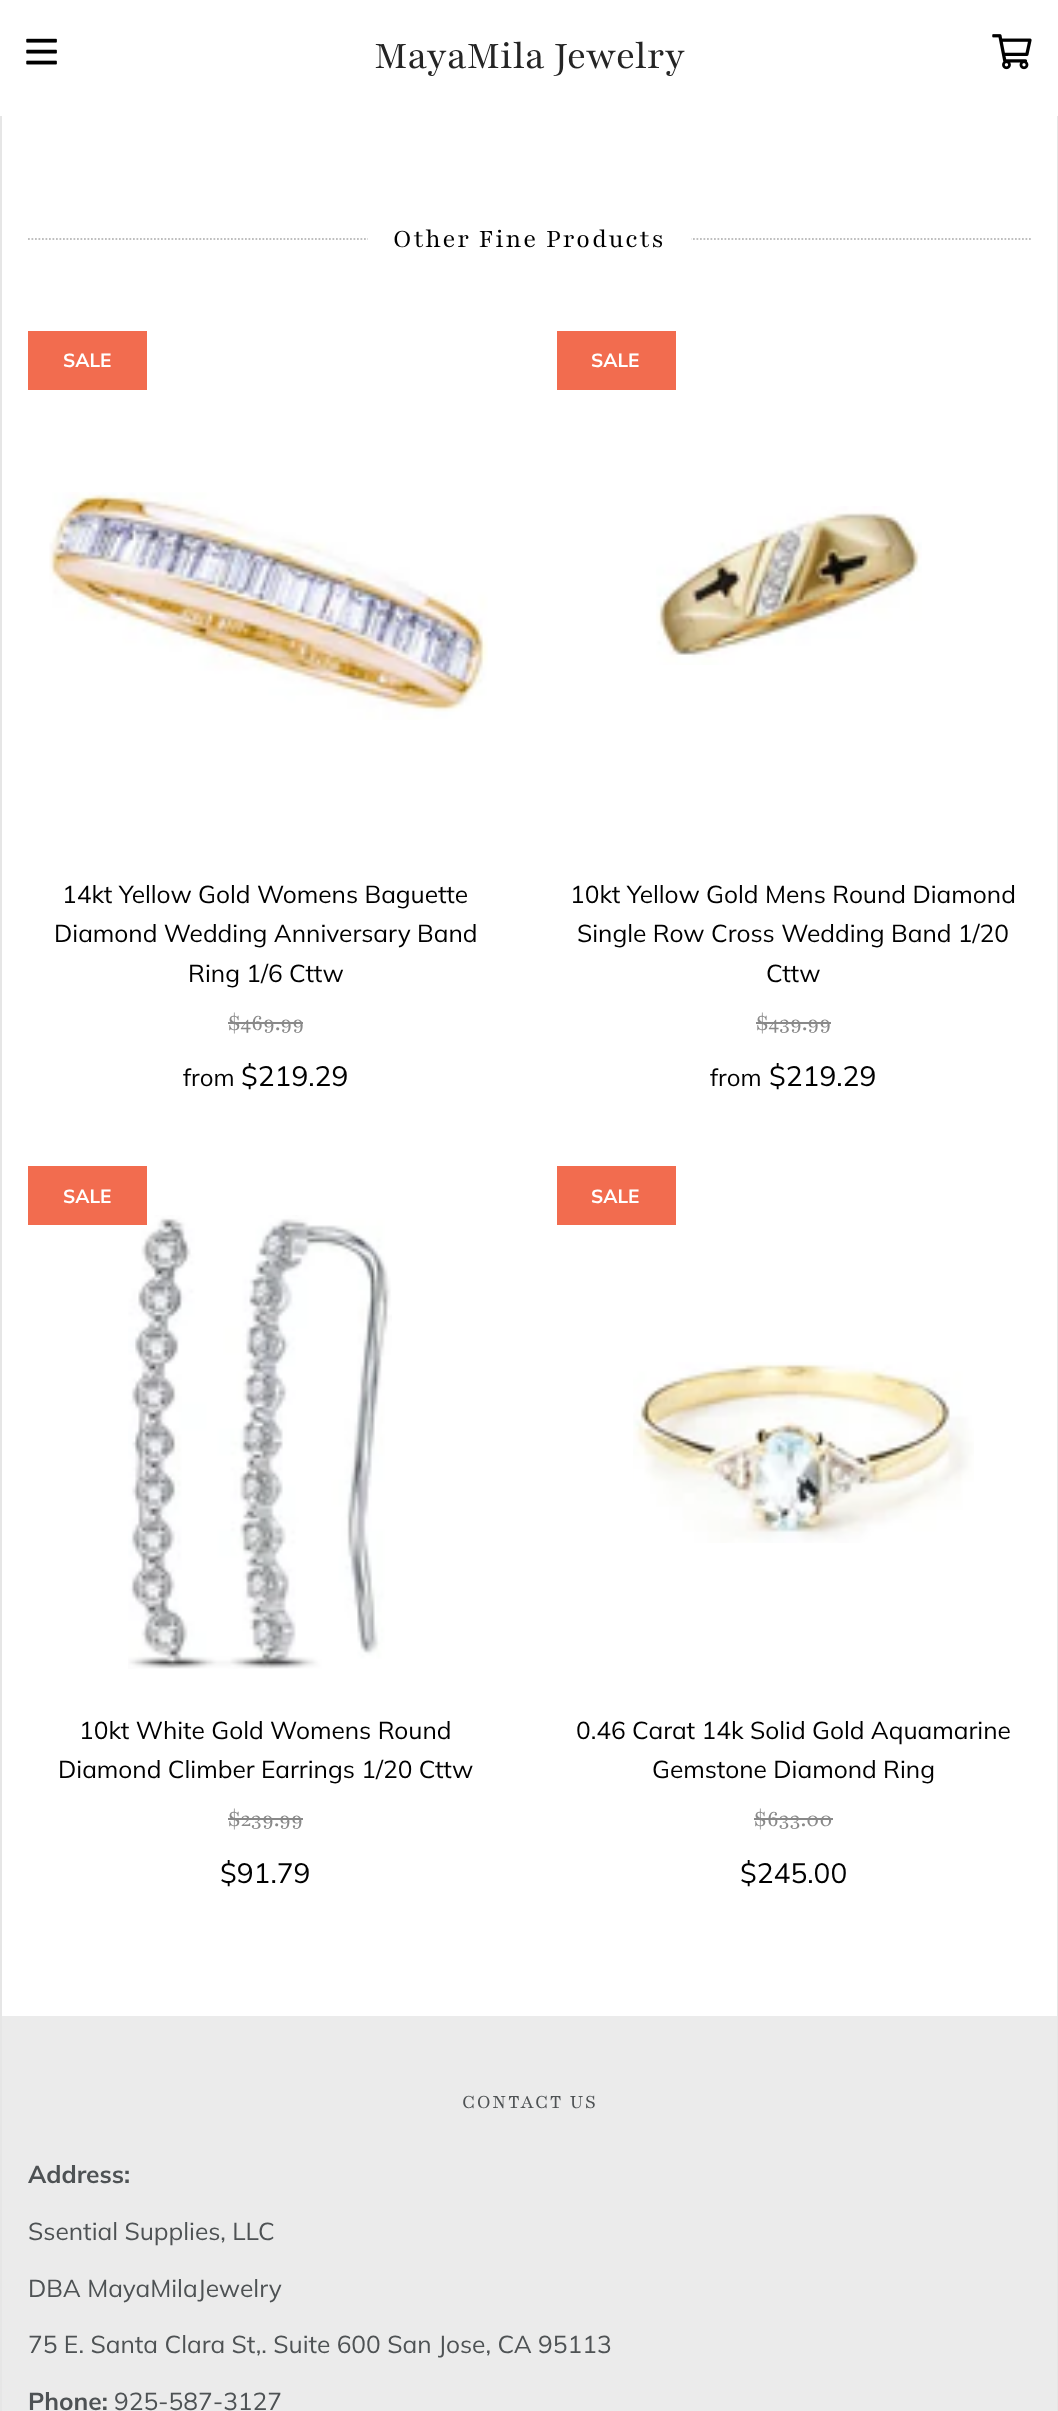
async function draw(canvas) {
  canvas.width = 1058;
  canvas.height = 2411;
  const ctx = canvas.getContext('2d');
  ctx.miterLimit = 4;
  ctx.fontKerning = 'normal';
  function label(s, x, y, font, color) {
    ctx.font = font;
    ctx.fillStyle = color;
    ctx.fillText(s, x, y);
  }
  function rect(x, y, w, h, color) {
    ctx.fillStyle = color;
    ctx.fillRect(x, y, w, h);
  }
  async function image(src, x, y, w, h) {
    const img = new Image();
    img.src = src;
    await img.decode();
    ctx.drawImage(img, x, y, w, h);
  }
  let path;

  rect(0, 0, 1058, 2411, '#fff');
  rect(1057, 116, 1, 2295, '#e6e6e6');
  rect(0, 116, 2, 2295, '#e6e6e6');
  await image('assets/img1.png', 26, 38, 31, 27);
  label('MayaMila Jewelry', 374, 68, '42px "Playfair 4"', '#252525');
  await image('assets/img2.png', 992, 34, 40, 36);
  path = new Path2D('M28 239H1031');
  ctx.strokeStyle = '#bfbfbf';
  ctx.lineWidth = 1.8;
  ctx.setLineDash([1.75, 1.75]);
  ctx.stroke(path);
  rect(368, 238, 323, 2, '#fff');
  ctx.letterSpacing = '1.75px';
  label('Other Fine Products', 393, 247, '28px Playfair', '#000');
  rect(28, 331, 119, 59, '#f26c4f');
  ctx.letterSpacing = '0px';
  label('SALE', 63, 367, 'bold 19px Muli', '#fff');
  await image('assets/img3.png', 49, 492, 439, 228);
  label('14kt Yellow Gold Womens Baguette', 62, 903, '24.5px Muli', '#000');
  label('Diamond Wedding Anniversary Band', 54, 942, '24.5px Muli', '#000');
  label('Ring 1/6 Cttw', 188, 982, '24.5px Muli', '#000');
  label('$469.99', 228, 1030, '24.5px "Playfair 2"', '#898989');
  rect(228, 1022, 75, 2, '#898989');
  label('from', 183, 1086, '24px Muli', '#000');
  label('$219.29', 241, 1086, '28px Muli', '#000');
  rect(557, 331, 119, 59, '#f26c4f');
  label('SALE', 591, 367, 'bold 19px Muli', '#fff');
  await image('assets/img4.png', 656, 506, 266, 159);
  label('10kt Yellow Gold Mens Round Diamond', 570, 903, '24.5px Muli', '#000');
  label('Single Row Cross Wedding Band 1/20', 577, 942, '24.5px Muli', '#000');
  label('Cttw', 766, 982, '24.5px Muli', '#000');
  label('$439.99', 756, 1030, '24.5px "Playfair 2"', '#898989');
  rect(756, 1022, 75, 2, '#898989');
  label('from', 710, 1086, '24px Muli', '#000');
  label('$219.29', 769, 1086, '28px Muli', '#000');
  await image('assets/img5.png', 128, 1215, 264, 454);
  rect(28, 1166, 119, 59, '#f26c4f');
  label('SALE', 63, 1203, 'bold 19px Muli', '#fff');
  label('10kt White Gold Womens Round', 79, 1739, '24.5px Muli', '#000');
  label('Diamond Climber Earrings 1/20 Cttw', 58, 1778, '24.5px Muli', '#000');
  label('$239.99', 228, 1826, '24.5px "Playfair 2"', '#898989');
  rect(228, 1818, 75, 2, '#898989');
  label('$91.79', 220, 1883, '28px Muli', '#000');
  rect(557, 1166, 119, 59, '#f26c4f');
  label('SALE', 591, 1203, 'bold 19px Muli', '#fff');
  await image('assets/img6.png', 633, 1362, 341, 181);
  label('0.46 Carat 14k Solid Gold Aquamarine', 576, 1739, '24.5px Muli', '#000');
  label('Gemstone Diamond Ring', 652, 1778, '24.5px Muli', '#000');
  label('$633.00', 754, 1826, '24.5px "Playfair 2"', '#898989');
  rect(754, 1818, 79, 2, '#898989');
  label('$245.00', 740, 1883, '28px Muli', '#000');
  rect(2, 2016, 1055, 395, '#ebebeb');
  ctx.letterSpacing = '1.75px';
  label('CONTACT US', 462, 2108, '21px "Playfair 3"', '#4e5254');
  ctx.letterSpacing = '0px';
  label('Address:', 28, 2183, 'bold 24.5px Muli', '#4e5254');
  label('Ssential Supplies, LLC', 28, 2240, '24.5px Muli', '#4e5254');
  label('DBA MayaMilaJewelry', 28, 2297, '24.5px Muli', '#4e5254');
  label('75 E. Santa Clara St,. Suite 600 San Jose, CA 95113', 28, 2353, '24.5px Muli', '#4e5254');
  label('Phone:', 28, 2410, 'bold 24.5px Muli', '#4e5254');
  label('925-587-3127', 114, 2410, '24.5px Muli', '#4e5254');
}

draw(document.querySelector('canvas'));
